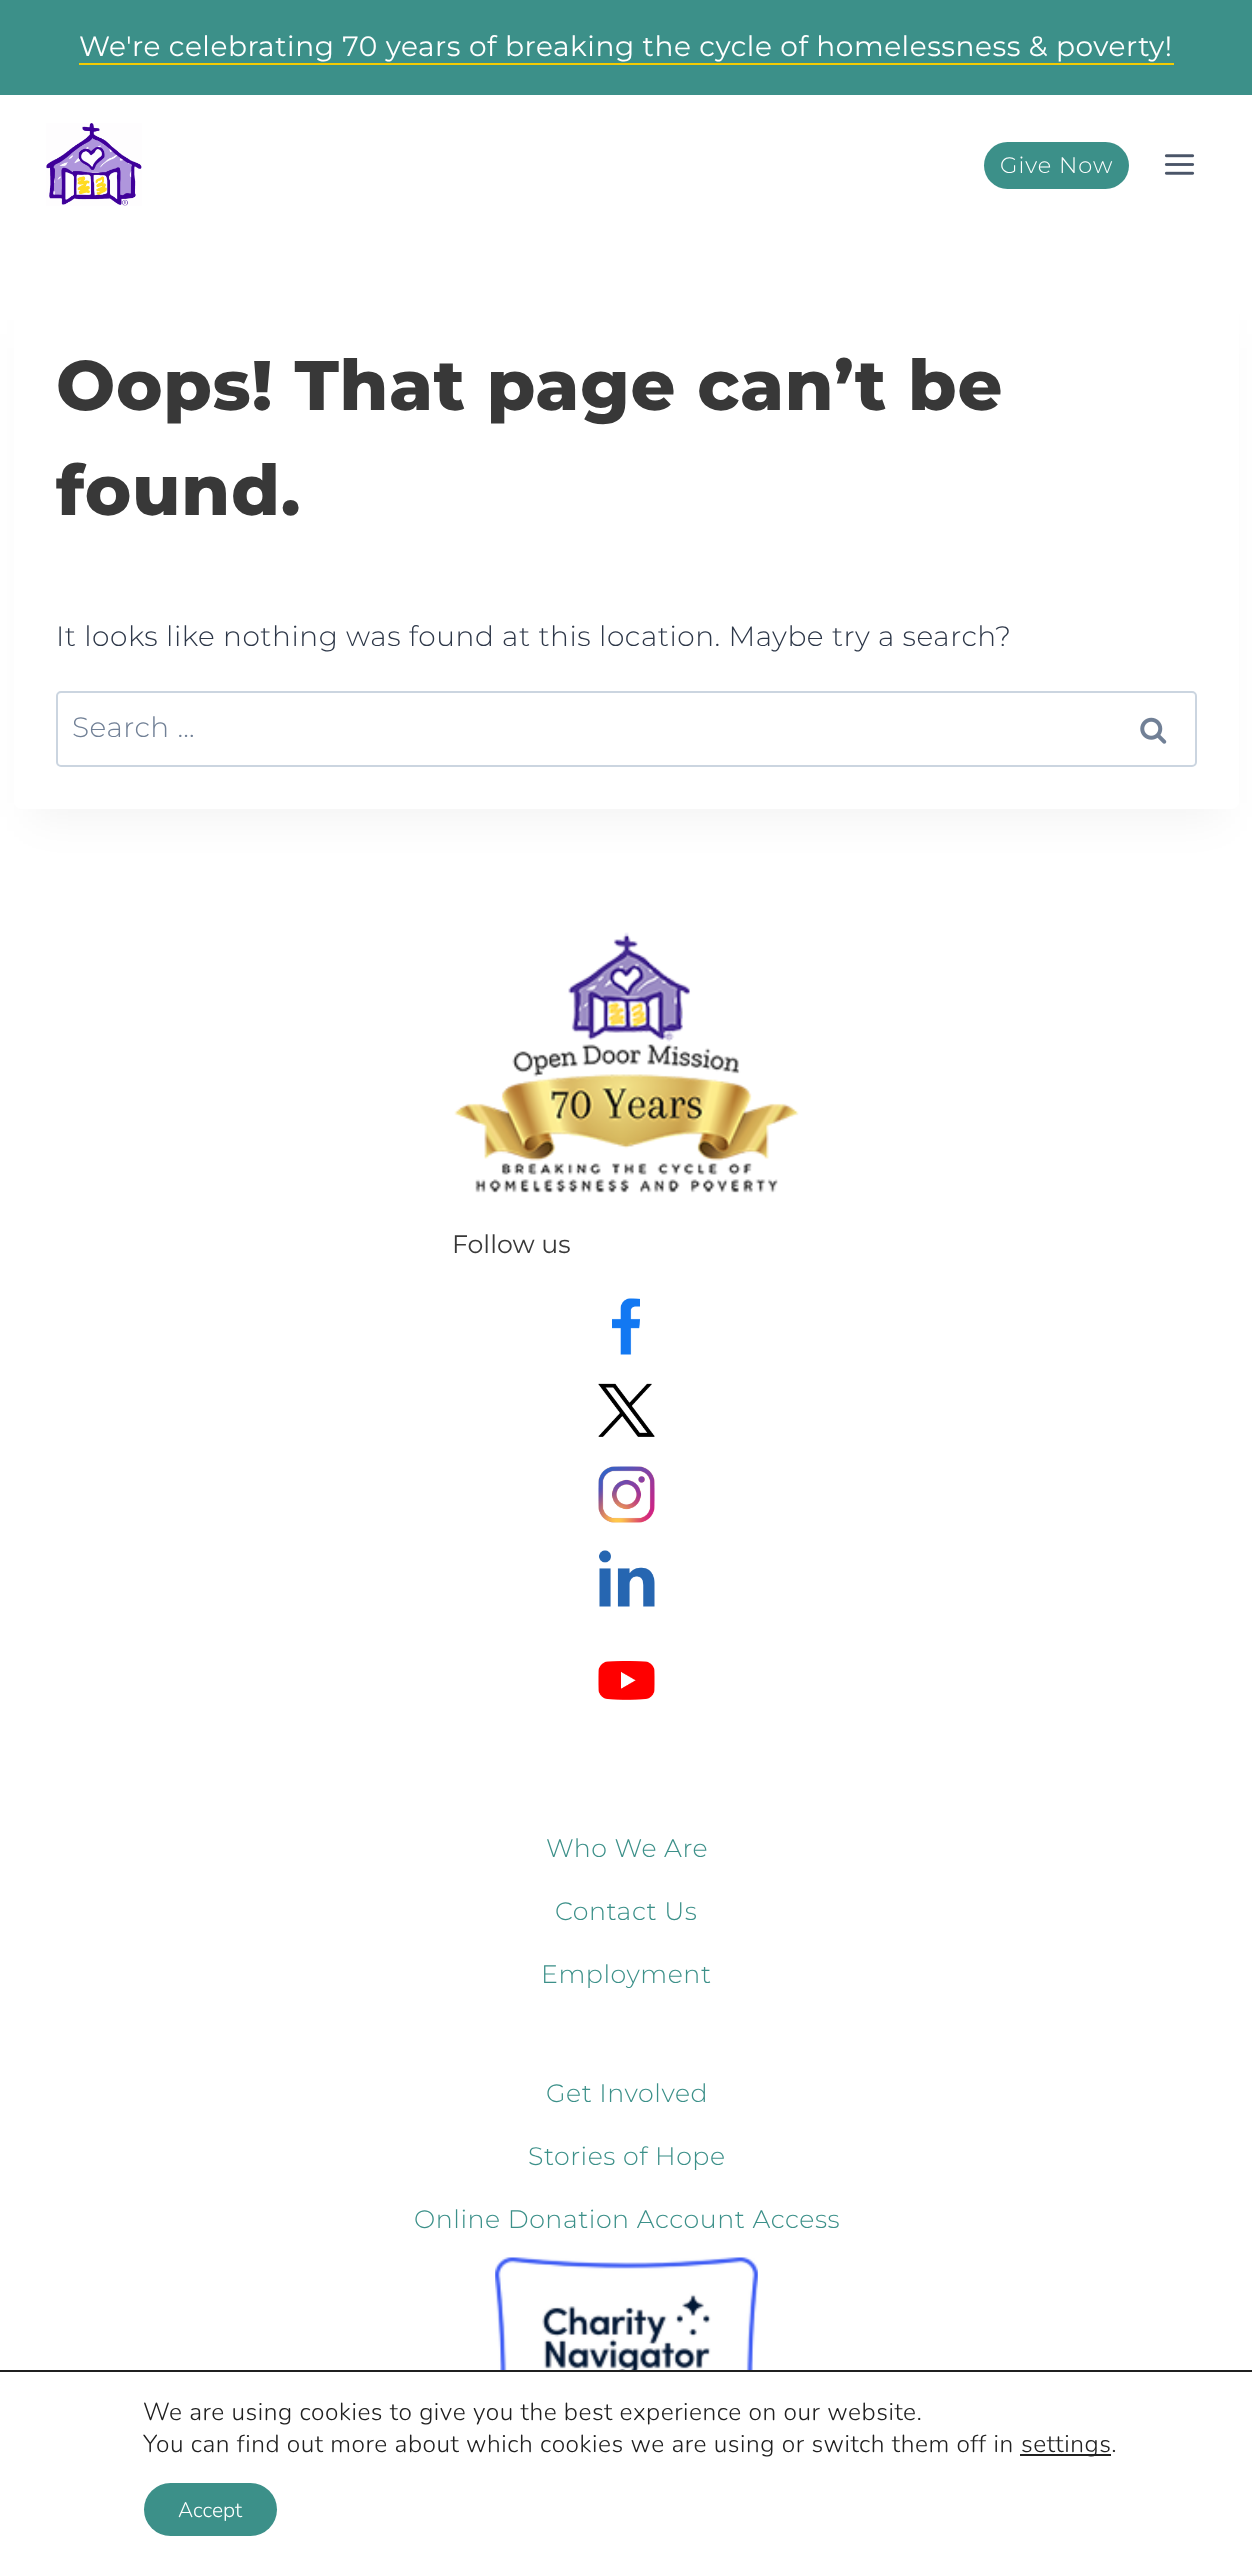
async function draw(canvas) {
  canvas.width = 1252;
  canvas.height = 2566;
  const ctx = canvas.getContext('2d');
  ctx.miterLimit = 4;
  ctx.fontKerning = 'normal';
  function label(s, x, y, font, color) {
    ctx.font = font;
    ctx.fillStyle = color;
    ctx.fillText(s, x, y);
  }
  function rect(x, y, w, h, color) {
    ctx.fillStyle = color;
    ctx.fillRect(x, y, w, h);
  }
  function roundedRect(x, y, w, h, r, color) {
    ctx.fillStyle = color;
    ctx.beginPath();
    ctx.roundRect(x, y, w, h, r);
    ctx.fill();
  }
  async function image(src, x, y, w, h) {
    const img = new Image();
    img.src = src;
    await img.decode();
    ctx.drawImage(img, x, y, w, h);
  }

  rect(0, 0, 1252, 2566, '#fff');
  rect(0, 0, 1252, 95, '#3c9089');
  ctx.letterSpacing = '0.55px';
  label('We\'re celebrating 70 years of breaking the cycle of homelessness & poverty!', 79, 56, '100 28px Montserrat', '#fff');
  rect(79, 63, 1095, 2, '#f3cb03');
  await image('assets/img1.png', 46, 123, 96, 83);
  roundedRect(984, 142, 145, 47, 23.5, '#3c9089');
  ctx.letterSpacing = '1px';
  label('Give Now', 1000, 173, '300 22.5px Montserrat', '#fff');
  await image('assets/img2.png', 1164, 154, 31, 21);
  ctx.fillStyle = '#0000000d';
  ctx.filter = 'blur(22px)';
  ctx.beginPath();
  ctx.rect(32, 334, 1190, 483);
  ctx.fill();
  ctx.filter = 'none';
  roundedRect(14, 291, 1225, 518, 7, '#fff');
  ctx.letterSpacing = '0.7px';
  label('Oops! That page can’t be', 56, 410, '800 70px Montserrat', '#383838');
  label('found.', 56, 515, '800 70px Montserrat', '#383838');
  ctx.letterSpacing = '0.55px';
  label('It looks like nothing was found at this location. Maybe try a search?', 56, 646, '300 28px Montserrat', '#2d3748');
  ctx.beginPath();
  ctx.roundRect(57, 692, 1139, 74, 4);
  ctx.strokeStyle = '#cbd5e0';
  ctx.lineWidth = 2;
  ctx.stroke();
  label('Search …', 72, 737, '300 28px Montserrat', '#718096');
  await image('assets/img3.png', 1140, 717, 27, 27);
  await image('assets/img4.png', 454, 932, 345, 261);
  ctx.letterSpacing = '0px';
  label('Follow us', 452, 1253, '100 25.25px Montserrat', '#383838');
  await image('assets/img5.png', 612, 1298, 28, 57);
  await image('assets/img6.png', 598, 1383, 57, 54);
  await image('assets/img7.png', 598, 1466, 57, 57);
  await image('assets/img8.png', 599, 1550, 56, 57);
  await image('assets/img9.png', 598, 1661, 57, 39);
  ctx.letterSpacing = '0.55px';
  label('Who We Are', 546, 1857, '300 25.25px Montserrat', '#3c9089');
  label('Contact Us', 555, 1920, '300 25.25px Montserrat', '#3c9089');
  label('Employment', 541, 1983, '300 25.25px Montserrat', '#3c9089');
  label('Get Involved', 546, 2102, '300 25.25px Montserrat', '#3c9089');
  label('Stories of Hope', 528, 2165, '300 25.25px Montserrat', '#3c9089');
  label('Online Donation Account Access', 414, 2228, '300 25.25px Montserrat', '#3c9089');
  await image('assets/img10.png', 495, 2257, 263, 113);
  rect(0, 2370, 1252, 2, '#202020');
  label('We are using cookies to give you the best experience on our website.', 143, 2420, '300 24.5px Nunito', '#202020');
  label('You can find out more about which cookies we are using or switch them off in', 143, 2452, '300 24.5px Nunito', '#202020');
  rect(1020, 2454, 91, 2, '#202020');
  label('settings.', 1021, 2452, '300 24.5px Nunito', '#202020');
  roundedRect(144, 2483, 133, 53, 26.5, '#3c9089');
  ctx.letterSpacing = '0px';
  label('Accept', 178, 2517, '300 21px Nunito', '#fff');
}

draw(document.querySelector('canvas'));
